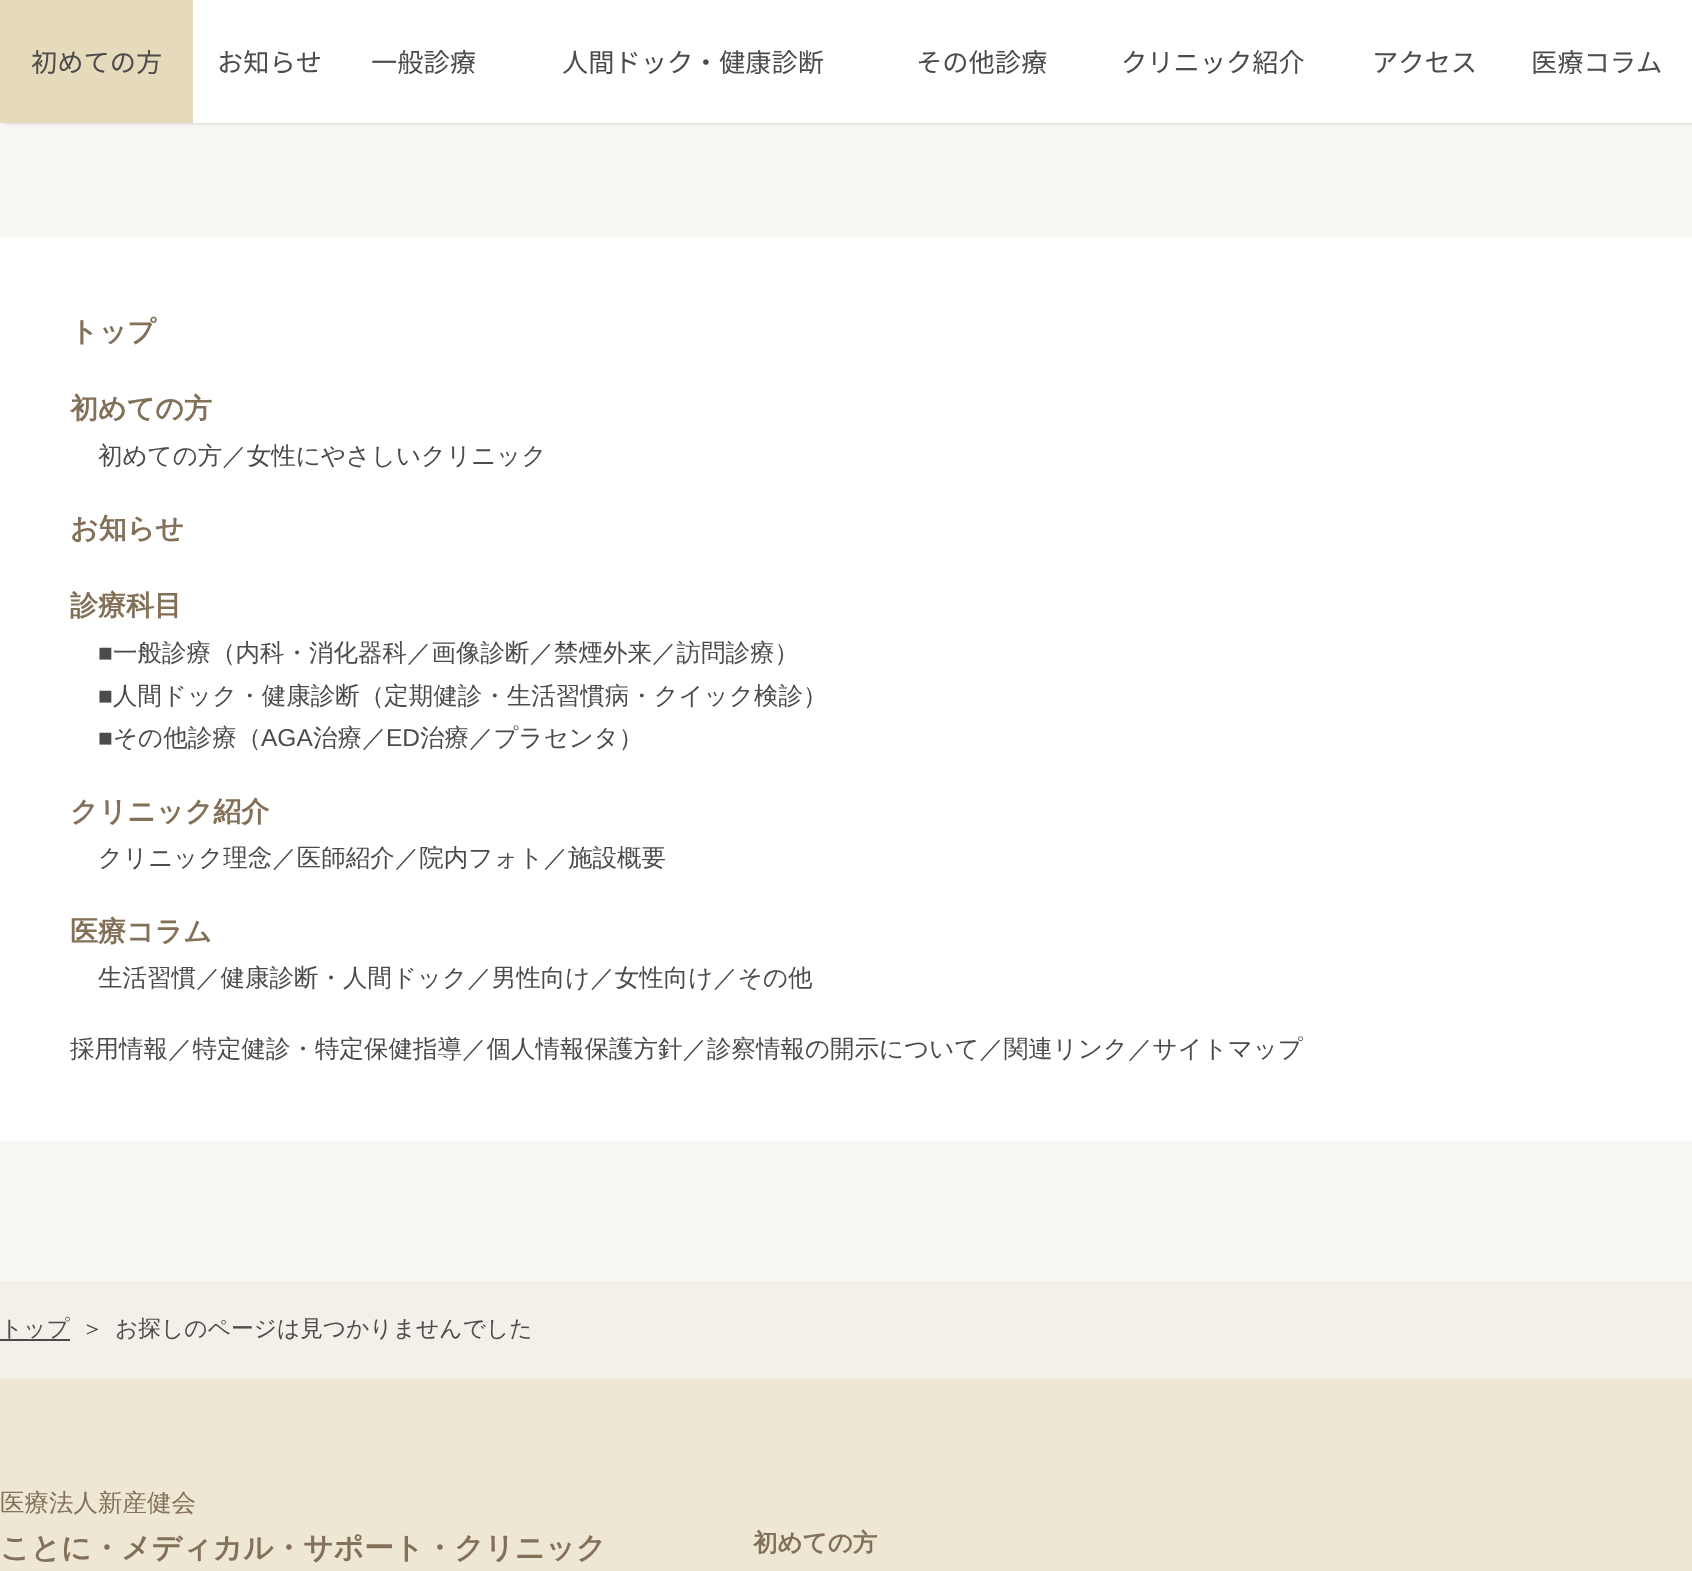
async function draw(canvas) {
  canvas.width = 1692;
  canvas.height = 1571;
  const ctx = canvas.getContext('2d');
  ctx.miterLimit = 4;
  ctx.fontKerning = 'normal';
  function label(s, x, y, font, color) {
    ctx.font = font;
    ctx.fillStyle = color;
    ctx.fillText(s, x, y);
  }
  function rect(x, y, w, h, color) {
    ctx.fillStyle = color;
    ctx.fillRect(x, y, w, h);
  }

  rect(0, 0, 1692, 1571, '#f9f7f3');
  ctx.fillStyle = '#00000033';
  ctx.filter = 'blur(2px)';
  ctx.beginPath();
  ctx.rect(5, 0, 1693, 123);
  ctx.fill();
  ctx.filter = 'none';
  rect(193, 0, 1499, 123, '#fff');
  rect(0, 0, 193, 123, '#e6dabc');
  label('初めての方', 31, 72, '26.25px Noto Sans JP', '#4b4b4b');
  label('お知らせ', 217, 72, '26.25px Noto Sans JP', '#4b4b4b');
  label('一般診療', 371, 72, '26.25px Noto Sans JP', '#4b4b4b');
  label('人間ドック・健康診断', 562, 72, '26.25px Noto Sans JP', '#4b4b4b');
  label('その他診療', 916, 72, '26.25px Noto Sans JP', '#4b4b4b');
  label('クリニック紹介', 1121, 72, '26.25px Noto Sans JP', '#4b4b4b');
  label('アクセス', 1372, 72, '26.25px Noto Sans JP', '#4b4b4b');
  label('医療コラム', 1531, 72, '26.25px Noto Sans JP', '#4b4b4b');
  rect(0, 238, 1692, 903, '#fff');
  label('トップ', 70, 341, 'bold 28px WenQuanYi Zen Hei', '#837058');
  label('初めての方', 70, 418, 'bold 28px WenQuanYi Zen Hei', '#837058');
  label('初めての方／女性にやさしいクリニック', 98, 464, '500 24.5px WenQuanYi Zen Hei', '#4b4b4b');
  label('お知らせ', 70, 538, 'bold 28px WenQuanYi Zen Hei', '#837058');
  label('診療科目', 70, 615, 'bold 28px WenQuanYi Zen Hei', '#837058');
  label('■', 98, 661, '24.5px Liberation Sans', '#4b4b4b');
  label('一般診療（内科・消化器科／画像診断／禁煙外来／訪問診療）', 113, 661, '500 24.5px WenQuanYi Zen Hei', '#4b4b4b');
  label('■', 98, 704, '24.5px Liberation Sans', '#4b4b4b');
  label('人間ドック・健康診断（定期健診・生活習慣病・クイック検診）', 113, 704, '500 24.5px WenQuanYi Zen Hei', '#4b4b4b');
  label('■', 98, 746, '24.5px Liberation Sans', '#4b4b4b');
  label('その他診療（', 113, 746, '500 24.5px WenQuanYi Zen Hei', '#4b4b4b');
  label('AGA', 261, 746, '24.5px Liberation Sans', '#4b4b4b');
  label('治療／', 313, 746, '500 24.5px WenQuanYi Zen Hei', '#4b4b4b');
  label('ED', 386, 746, '24.5px Liberation Sans', '#4b4b4b');
  label('治療／プラセンタ）', 420, 746, '500 24.5px WenQuanYi Zen Hei', '#4b4b4b');
  label('クリニック紹介', 70, 821, 'bold 28px WenQuanYi Zen Hei', '#837058');
  label('クリニック理念／医師紹介／院内フォト／施設概要', 98, 866, '500 24.5px WenQuanYi Zen Hei', '#4b4b4b');
  label('医療コラム', 70, 941, 'bold 28px WenQuanYi Zen Hei', '#837058');
  label('生活習慣／健康診断・人間ドック／男性向け／女性向け／その他', 98, 986, '500 24.5px WenQuanYi Zen Hei', '#4b4b4b');
  label('採用情報／特定健診・特定保健指導／個人情報保護方針／診察情報の開示について／関連リンク／サイトマップ', 70, 1057, '500 24.5px WenQuanYi Zen Hei', '#4b4b4b');
  rect(0, 1281, 1692, 98, '#f3f0e9');
  label('トップ', 0, 1336, '500 22.75px WenQuanYi Zen Hei', '#4b4b4b');
  rect(0, 1339, 70, 2, '#4b4b4b');
  label('＞', 81, 1336, '500 22.75px WenQuanYi Zen Hei', '#4b4b4b');
  label('お探しのページは見つかりませんでした', 115, 1336, '500 22.75px WenQuanYi Zen Hei', '#4b4b4b');
  rect(0, 1379, 1692, 192, '#eee7d3');
  label('医療法人新産健会', 0, 1511, '500 24.5px WenQuanYi Zen Hei', '#837058');
  label('ことに・メディカル・サポート・クリニック', 0, 1558, 'bold 29.75px WenQuanYi Zen Hei', '#837058');
  label('初めての方', 753, 1551, 'bold 24.5px WenQuanYi Zen Hei', '#837058');
}

draw(document.querySelector('canvas'));
